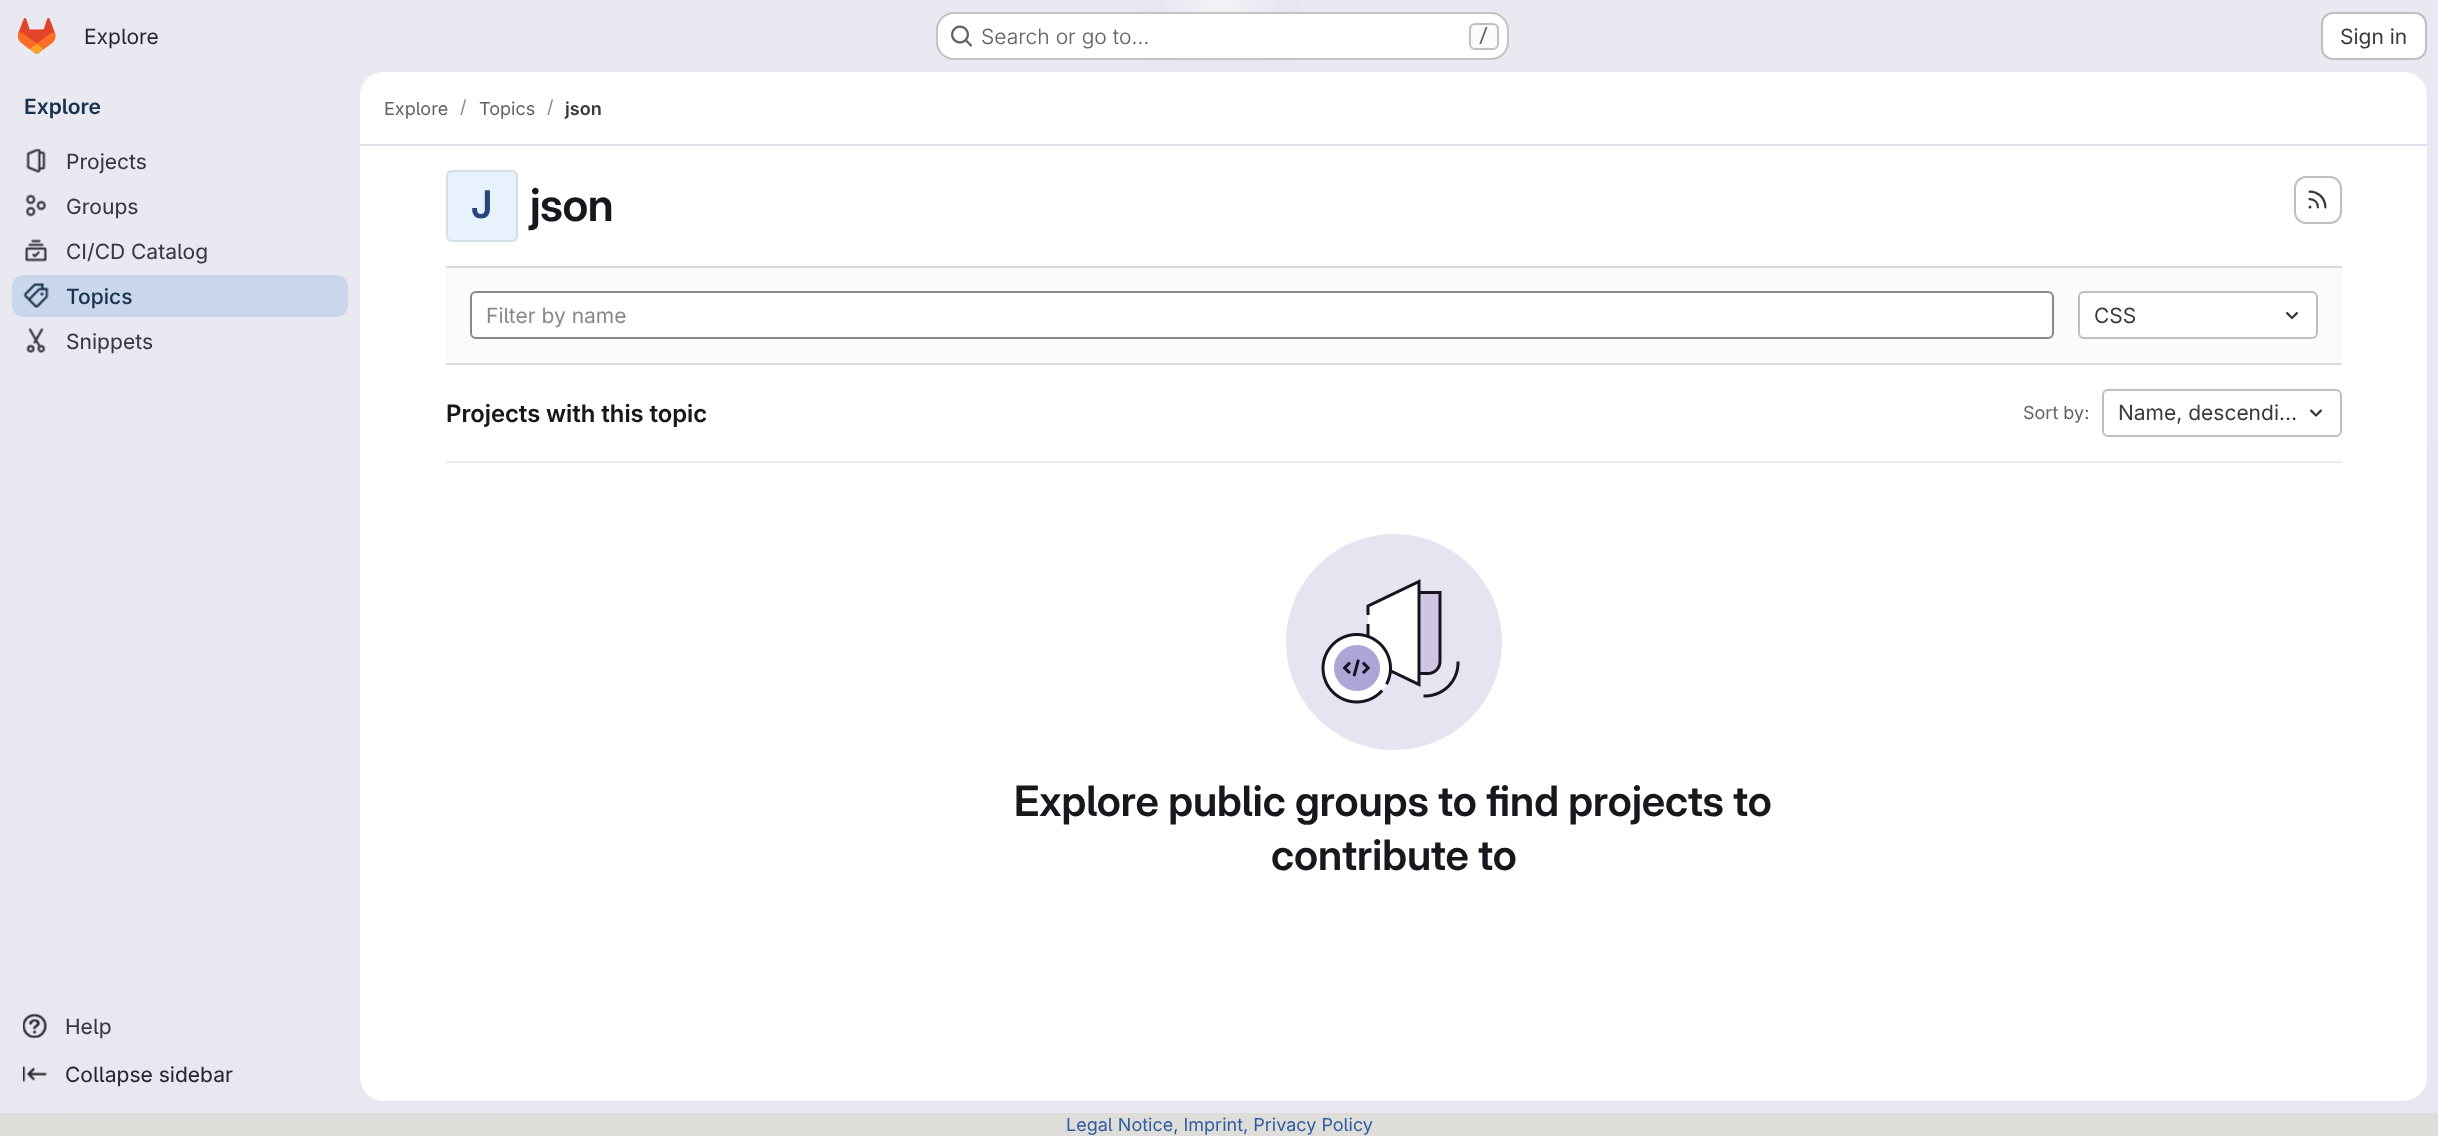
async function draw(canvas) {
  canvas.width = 2438;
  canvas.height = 1136;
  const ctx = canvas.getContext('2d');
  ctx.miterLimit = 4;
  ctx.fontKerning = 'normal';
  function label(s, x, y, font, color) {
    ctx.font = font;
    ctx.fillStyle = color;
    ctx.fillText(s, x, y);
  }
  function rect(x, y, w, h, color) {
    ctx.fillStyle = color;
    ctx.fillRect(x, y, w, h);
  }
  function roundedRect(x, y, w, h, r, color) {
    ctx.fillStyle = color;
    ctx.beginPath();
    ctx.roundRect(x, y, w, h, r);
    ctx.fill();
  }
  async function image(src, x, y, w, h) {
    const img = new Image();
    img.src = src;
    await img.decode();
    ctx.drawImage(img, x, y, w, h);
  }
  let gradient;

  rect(0, 0, 2438, 1136, '#fff');
  gradient = ctx.createLinearGradient(1353, 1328, 1086, -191);
  gradient.addColorStop(0, '#e8e6f0');
  gradient.addColorStop(0.7, '#eae9f2');
  ctx.fillStyle = gradient;
  ctx.fillRect(0, 0, 2438, 1113);
  gradient = ctx.createRadialGradient(1220, 0, 0, 1220, 0, 1220);
  gradient.addColorStop(0, '#e4e2ed');
  gradient.addColorStop(0.09, '#e4e2ed00');
  ctx.fillStyle = gradient;
  ctx.beginPath();
  ctx.rect(1141, 0, 158, 72);
  ctx.save();
  ctx.clip();
  ctx.scale(1, 1137 / 1220);
  ctx.fillRect(0, 0, 2438, 1219);
  ctx.restore();
  gradient = ctx.createRadialGradient(1220, 0, 0, 1220, 0, 1220);
  gradient.addColorStop(0, '#e4e2ec');
  gradient.addColorStop(0.06, '#e4e2ec00');
  ctx.fillStyle = gradient;
  ctx.beginPath();
  ctx.rect(1198, 5, 44, 19);
  ctx.save();
  ctx.clip();
  ctx.scale(1, 1137 / 1220);
  ctx.fillRect(0, 0, 2438, 1219);
  ctx.restore();
  gradient = ctx.createRadialGradient(1220, 0, 0, 1220, 0, 1667);
  gradient.addColorStop(0, '#ffffff99');
  gradient.addColorStop(0.04, '#ffffff00');
  ctx.fillStyle = gradient;
  ctx.fillRect(1164, 0, 112, 12);
  await image('assets/img1.png', 18, 18, 38, 36);
  label('Explore', 84, 44, '21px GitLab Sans', '#28272d');
  roundedRect(936, 12, 573, 48, 18, '#fff');
  ctx.beginPath();
  ctx.roundRect(937, 13, 571, 46, 17);
  ctx.strokeStyle = '#0505063d';
  ctx.lineWidth = 2;
  ctx.stroke();
  await image('assets/img2.png', 951, 25, 21, 22);
  label('Search or go to…', 981, 44, '300 21px GitLab Sans', '#626168');
  ctx.fillStyle = '#fbfafd';
  ctx.beginPath();
  ctx.roundRect(1470, 24, 28, 25, 5);
  ctx.fill();
  ctx.strokeStyle = '#bfbfc3';
  ctx.stroke();
  label('/', 1478, 42, '500 18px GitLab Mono', '#626168');
  ctx.fillStyle = '#fff';
  ctx.beginPath();
  ctx.roundRect(2322, 13, 104, 46, 11);
  ctx.fill();
  ctx.stroke();
  label('Sign in', 2340, 44, '21px GitLab Sans', '#3a383f');
  label('Explore', 24, 114, '600 21px "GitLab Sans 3"', '#18334e');
  await image('assets/img3.png', 26, 149, 20, 24);
  label('Projects', 66, 169, '21px "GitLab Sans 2"', '#3a383f');
  await image('assets/img4.png', 25, 194, 22, 23);
  label('Groups', 66, 214, '21px "GitLab Sans 2"', '#3a383f');
  await image('assets/img5.png', 25, 239, 22, 23);
  label('CI/CD Catalog', 66, 259, '21px "GitLab Sans 2"', '#3a383f');
  roundedRect(12, 275, 336, 42, 12, '#cad6eb');
  await image('assets/img6.png', 23, 283, 26, 25);
  label('Topics', 66, 304, '500 21px GitLab Sans', '#18334e');
  await image('assets/img7.png', 26, 328, 20, 25);
  label('Snippets', 66, 349, '21px "GitLab Sans 2"', '#3a383f');
  await image('assets/img8.png', 23, 1013, 24, 26);
  label('Help', 65, 1034, '21px "GitLab Sans 2"', '#3a383f');
  await image('assets/img9.png', 23, 1066, 24, 16);
  label('Collapse sidebar', 65, 1082, '21px "GitLab Sans 2"', '#28272d');
  roundedRect(360, 72, 2067, 1029, 24, '#fff');
  ctx.beginPath();
  ctx.roundRect(360, 72, 2067, 74, [24, 24, 0, 0]);
  ctx.fill();
  rect(360, 144, 2067, 2, '#e1dfec');
  label('Explore', 384, 115, '18px GitLab Sans', '#626168');
  label('/', 460, 113, '18px GitLab Sans', '#89888d');
  label('Topics', 479, 115, '18px GitLab Sans', '#626168');
  label('/', 547, 113, '18px GitLab Sans', '#89888d');
  label('json', 565, 115, '600 18px "GitLab Sans 3"', '#3a383f');
  roundedRect(446, 170, 72, 72, 6, '#e7f2fc');
  ctx.beginPath();
  ctx.roundRect(447, 171, 70, 70, 5);
  ctx.strokeStyle = '#05050614';
  ctx.stroke();
  ctx.letterSpacing = '-0.5px';
  label('J', 471, 218, '600 38px GitLab Sans', '#284779');
  label('json', 530, 221, '600 45px GitLab Sans', '#18171d');
  ctx.beginPath();
  ctx.roundRect(2295, 177, 46, 46, 11);
  ctx.strokeStyle = '#bfbfc3';
  ctx.stroke();
  await image('assets/img10.png', 2308, 190, 19, 19);
  rect(446, 268, 1896, 95, '#fbfafd');
  rect(446, 266, 1896, 2, '#dcdcde');
  rect(446, 363, 1896, 2, '#dcdcde');
  ctx.fillStyle = '#fff';
  ctx.beginPath();
  ctx.roundRect(471, 292, 1582, 46, 5);
  ctx.fill();
  ctx.strokeStyle = '#89888d';
  ctx.stroke();
  ctx.letterSpacing = '0px';
  label('Filter by name', 486, 323, '21px GitLab Sans', '#89888d');
  ctx.fillStyle = '#fff';
  ctx.beginPath();
  ctx.roundRect(2079, 292, 238, 46, 5);
  ctx.fill();
  ctx.strokeStyle = '#bfbfc3';
  ctx.stroke();
  label('CSS', 2094, 323, '21px GitLab Sans', '#3a383f');
  await image('assets/img11.png', 2286, 312, 12, 8);
  rect(446, 461, 1896, 2, '#ececef');
  label('Projects with this topic', 446, 422, '600 24px "GitLab Sans 2"', '#18171d');
  label('Sort by:', 2023, 419, '18px GitLab Sans', '#626168');
  ctx.beginPath();
  ctx.roundRect(2103, 390, 238, 46, 5);
  ctx.stroke();
  label('Name, descendi…', 2118, 420, '21px GitLab Sans', '#3a383f');
  await image('assets/img12.png', 2310, 409, 12, 8);
  await image('assets/img13.png', 1286, 534, 216, 216);
  label('Explore public groups to find projects to', 1014, 816, '600 42px GitLab Sans', '#18171d');
  label('contribute to', 1271, 870, '600 42px GitLab Sans', '#18171d');
  rect(0, 1113, 2438, 23, '#deddda');
  label('Legal Notice, Imprint, Privacy Policy', 1066, 1131, '18px GitLab Sans', '#2f5ca0');
}

draw(document.querySelector('canvas'));
